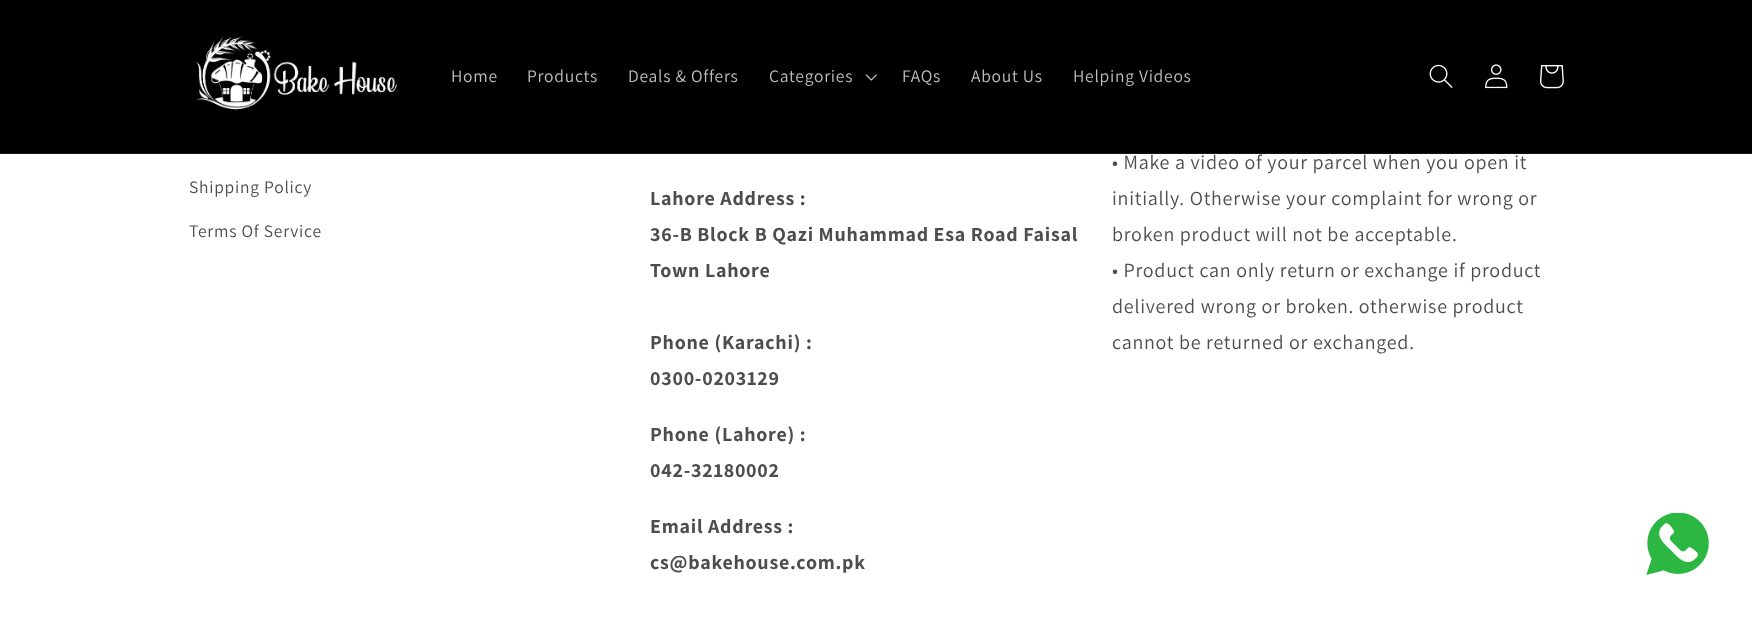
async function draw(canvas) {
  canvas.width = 1752;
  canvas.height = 618;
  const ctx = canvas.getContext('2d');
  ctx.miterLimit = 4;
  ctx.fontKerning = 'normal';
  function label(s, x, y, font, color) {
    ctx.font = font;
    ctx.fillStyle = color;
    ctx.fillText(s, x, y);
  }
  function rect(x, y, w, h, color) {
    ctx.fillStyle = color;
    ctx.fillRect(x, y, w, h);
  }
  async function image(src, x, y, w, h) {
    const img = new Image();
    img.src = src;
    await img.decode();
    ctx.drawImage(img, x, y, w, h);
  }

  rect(0, 0, 1752, 618, '#fff');
  rect(0, 0, 1752, 153, '#000');
  rect(0, 153, 1752, 1, '#141414');
  await image('assets/img1.png', 195, 36, 202, 74);
  ctx.letterSpacing = '0.75px';
  label('Home', 451, 82, '17.5px Assistant', '#bfbfbf');
  label('Products', 527, 82, '17.5px Assistant', '#bfbfbf');
  label('Deals & Offers', 628, 82, '17.5px Assistant', '#bfbfbf');
  label('Categories', 769, 82, '17.5px Assistant', '#bfbfbf');
  await image('assets/img2.png', 865, 74, 12, 7);
  label('FAQs', 902, 82, '17.5px Assistant', '#bfbfbf');
  label('About Us', 971, 82, '17.5px Assistant', '#bfbfbf');
  label('Helping Videos', 1073, 82, '17.5px Assistant', '#bfbfbf');
  await image('assets/img3.png', 1429, 64, 24, 24);
  await image('assets/img4.png', 1485, 64, 23, 25);
  await image('assets/img5.png', 1540, 65, 24, 24);
  label('Shipping Policy', 189, 193, '17.5px Assistant', '#4d4d4d');
  label('Terms Of Service', 189, 237, '17.5px Assistant', '#4d4d4d');
  label('Lahore Address :', 650, 205, 'bold 20px Assistant', '#4d4d4d');
  label('36-B Block B Qazi Muhammad Esa Road Faisal', 650, 241, 'bold 20px Assistant', '#4d4d4d');
  label('Town Lahore', 650, 277, 'bold 20px Assistant', '#4d4d4d');
  label('Phone (Karachi) :', 650, 349, 'bold 20px Assistant', '#4d4d4d');
  label('0300-0203129', 650, 385, 'bold 20px Assistant', '#4d4d4d');
  label('Phone (Lahore) :', 650, 441, 'bold 20px Assistant', '#4d4d4d');
  label('042-32180002', 650, 477, 'bold 20px Assistant', '#4d4d4d');
  label('Email Address :', 650, 533, 'bold 20px Assistant', '#4d4d4d');
  label('cs@bakehouse.com.pk', 650, 569, 'bold 20px Assistant', '#4d4d4d');
  label('• Make a video of your parcel when you open it', 1112, 169, '20px Assistant', '#4d4d4d');
  label('initially. Otherwise your complaint for wrong or', 1112, 205, '20px Assistant', '#4d4d4d');
  label('broken product will not be acceptable.', 1112, 241, '20px Assistant', '#4d4d4d');
  label('• Product can only return or exchange if product', 1112, 277, '20px Assistant', '#4d4d4d');
  label('delivered wrong or broken. otherwise product', 1112, 313, '20px Assistant', '#4d4d4d');
  label('cannot be returned or exchanged.', 1112, 349, '20px Assistant', '#4d4d4d');
  await image('assets/img6.png', 1646, 513, 63, 62);
}

draw(document.querySelector('canvas'));
